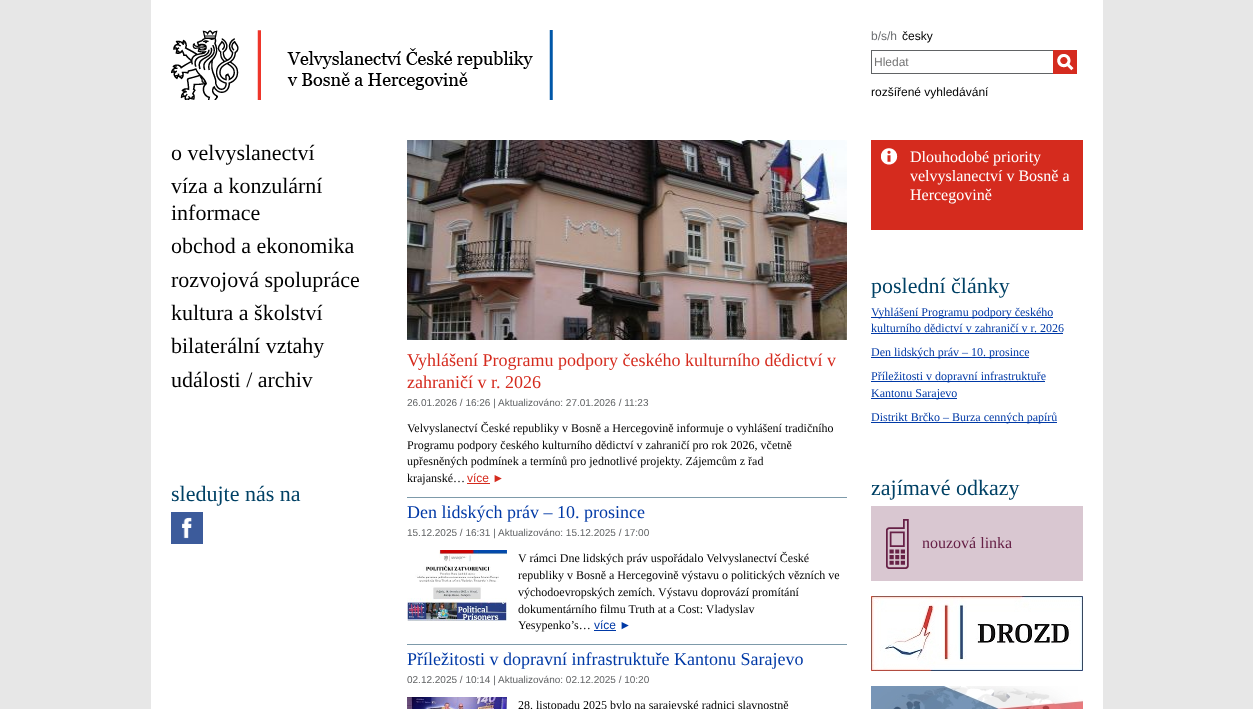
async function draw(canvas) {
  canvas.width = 1253;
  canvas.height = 709;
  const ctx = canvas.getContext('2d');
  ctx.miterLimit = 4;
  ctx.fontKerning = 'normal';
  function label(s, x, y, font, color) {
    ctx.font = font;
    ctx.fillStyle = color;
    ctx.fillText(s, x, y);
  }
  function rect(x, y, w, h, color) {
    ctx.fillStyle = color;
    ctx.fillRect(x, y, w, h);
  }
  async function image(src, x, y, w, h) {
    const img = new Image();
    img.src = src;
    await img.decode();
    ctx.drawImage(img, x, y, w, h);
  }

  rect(0, 0, 1253, 709, '#e7e7e7');
  rect(151, 0, 952, 709, '#fff');
  await image('assets/img1.png', 171, 30, 382, 70);
  label('b/s/h', 871, 40, '12px Liberation Sans', '#6d6f72');
  label('česky', 902, 40, '12px Liberation Sans', '#000');
  rect(871, 50, 182, 1, '#616365');
  rect(871, 73, 182, 1, '#616365');
  rect(871, 50, 1, 24, '#616365');
  label('Hledat', 874, 66, '12px Liberation Sans', '#757575');
  await image('assets/img2.png', 1053, 50, 24, 24);
  label('rozšířené vyhledávání', 871, 96, '12px Liberation Sans', '#000');
  label('o velvyslanectví', 171, 160, '22px Liberation Serif', '#000');
  label('víza a konzulární', 171, 193, '22px Liberation Serif', '#000');
  label('informace', 171, 220, '22px Liberation Serif', '#000');
  label('obchod a ekonomika', 171, 253, '22px Liberation Serif', '#000');
  label('rozvojová spolupráce', 171, 287, '22px Liberation Serif', '#000');
  label('kultura a školství', 171, 320, '22px Liberation Serif', '#000');
  label('bilaterální vztahy', 171, 353, '22px Liberation Serif', '#000');
  label('události / archiv', 171, 387, '22px Liberation Serif', '#000');
  label('sledujte nás na', 171, 501, '22px Liberation Serif', '#004165');
  await image('assets/img3.png', 171, 512, 32, 32);
  await image('assets/img4.png', 407, 140, 440, 200);
  label('Vyhlášení Programu podpory českého kulturního dědictví v', 407, 366, '18px Liberation Serif', '#d52b1e');
  label('zahraničí v r. 2026', 407, 388, '18px Liberation Serif', '#d52b1e');
  label('26.01.2026 / 16:26 | Aktualizováno: 27.01.2026 / 11:23', 407, 406, '10px Liberation Sans', '#616365');
  label('Velvyslanectví České republiky v Bosně a Hercegovině informuje o vyhlášení tradičního', 407, 432, '12px Liberation Serif', '#000');
  label('Programu podpory českého kulturního dědictví v zahraničí pro rok 2026, včetně', 407, 449, '12px Liberation Serif', '#000');
  label('upřesněných podmínek a termínů pro jednotlivé projekty. Zájemcům z řad', 407, 465, '12px Liberation Serif', '#000');
  label('krajanské…', 407, 482, '12px Liberation Serif', '#000');
  label('více ►', 467, 482, '12px Liberation Sans', '#d52b1e');
  rect(467, 483, 23, 1, '#d52b1e');
  rect(407, 497, 440, 1, '#7d9aaa');
  label('Den lidských práv – 10. prosince', 407, 518, '18px Liberation Serif', '#0039a6');
  label('15.12.2025 / 16:31 | Aktualizováno: 15.12.2025 / 17:00', 407, 536, '10px Liberation Sans', '#616365');
  await image('assets/img5.png', 407, 550, 100, 71);
  label('V rámci Dne lidských práv uspořádalo Velvyslanectví České', 518, 562, '12px Liberation Serif', '#000');
  label('republiky v Bosně a Hercegovině výstavu o politických vězních ve', 518, 579, '12px Liberation Serif', '#000');
  label('východoevropských zemích. Výstavu doprovází promítání', 518, 596, '12px Liberation Serif', '#000');
  label('dokumentárního filmu Truth at a Cost: Vladyslav', 518, 613, '12px Liberation Serif', '#000');
  label('Yesypenko’s…', 518, 629, '12px Liberation Serif', '#000');
  label('více ►', 594, 629, '12px Liberation Sans', '#0039a6');
  rect(594, 630, 22, 1, '#0039a6');
  rect(407, 644, 440, 1, '#7d9aaa');
  label('Příležitosti v dopravní infrastruktuře Kantonu Sarajevo', 407, 665, '18px Liberation Serif', '#0039a6');
  label('02.12.2025 / 10:14 | Aktualizováno: 02.12.2025 / 10:20', 407, 683, '10px Liberation Sans', '#616365');
  await image('assets/img6.png', 407, 697, 100, 12);
  label('28. listopadu 2025 bylo na sarajevské radnici slavnostně', 518, 709, '12px Liberation Serif', '#000');
  rect(871, 140, 212, 90, '#d52b1e');
  await image('assets/img7.png', 881, 148, 17, 17);
  label('Dlouhodobé priority', 910, 162, '16px Liberation Serif', '#fff');
  label('velvyslanectví v Bosně a', 910, 181, '16px Liberation Serif', '#fff');
  label('Hercegovině', 910, 200, '16px Liberation Serif', '#fff');
  label('poslední články', 871, 293, '22px Liberation Serif', '#004165');
  rect(871, 317, 182, 1, '#0039a6');
  label('Vyhlášení Programu podpory českého', 871, 316, '12px Liberation Serif', '#0039a6');
  label('kulturního dědictví v zahraničí v r. 2026', 871, 332, '12px Liberation Serif', '#0039a6');
  rect(871, 333, 192, 1, '#0039a6');
  rect(871, 357, 158, 1, '#0039a6');
  label('Den lidských práv – 10. prosince', 871, 356, '12px Liberation Serif', '#0039a6');
  rect(871, 381, 174, 1, '#0039a6');
  label('Příležitosti v dopravní infrastruktuře', 871, 380, '12px Liberation Serif', '#0039a6');
  rect(871, 398, 86, 1, '#0039a6');
  label('Kantonu Sarajevo', 871, 397, '12px Liberation Serif', '#0039a6');
  rect(871, 422, 186, 1, '#0039a6');
  label('Distrikt Brčko – Burza cenných papírů', 871, 421, '12px Liberation Serif', '#0039a6');
  label('zajímavé odkazy', 871, 495, '22px Liberation Serif', '#004165');
  rect(871, 506, 212, 75, '#d9c7d1');
  await image('assets/img8.png', 886, 519, 23, 50);
  label('nouzová linka', 922, 548, '16px Liberation Serif', '#662046');
  await image('assets/img9.png', 871, 596, 212, 75);
  await image('assets/img10.png', 871, 686, 212, 23);
}

draw(document.querySelector('canvas'));
